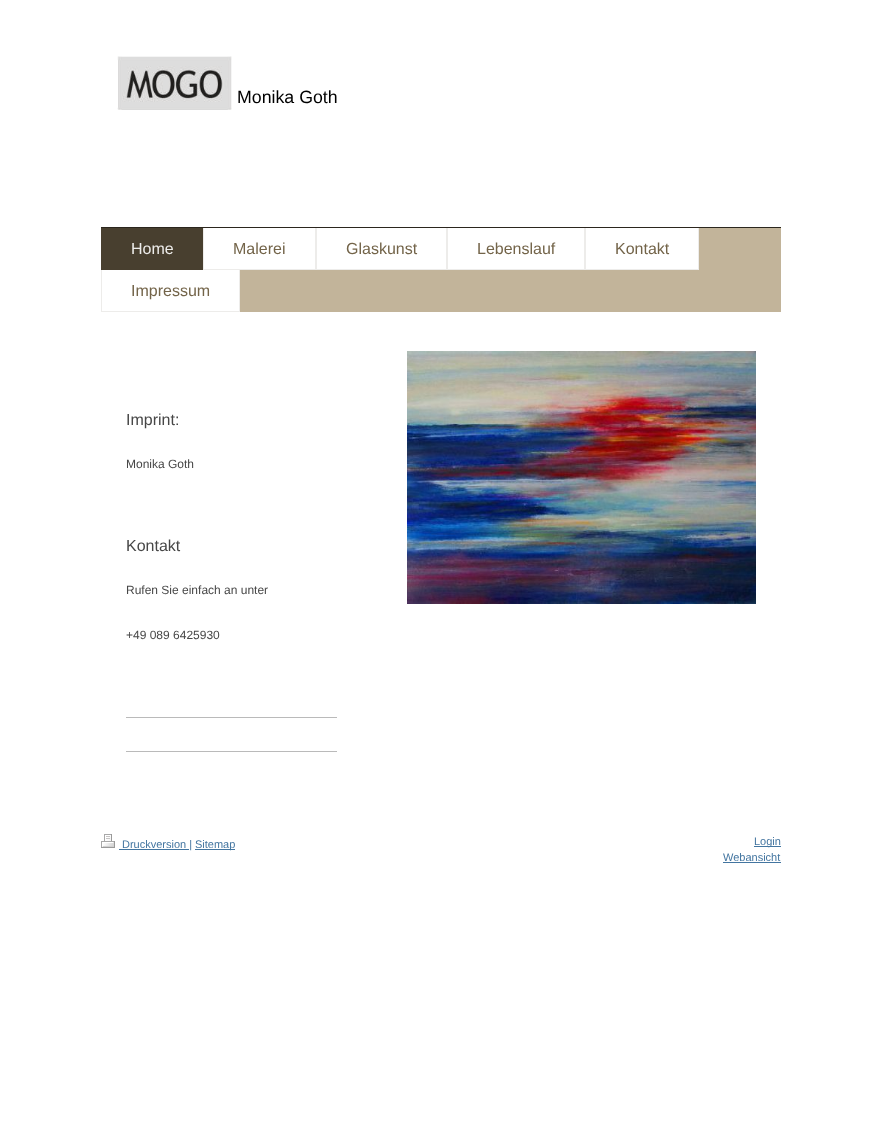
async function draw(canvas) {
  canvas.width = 881;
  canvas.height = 1136;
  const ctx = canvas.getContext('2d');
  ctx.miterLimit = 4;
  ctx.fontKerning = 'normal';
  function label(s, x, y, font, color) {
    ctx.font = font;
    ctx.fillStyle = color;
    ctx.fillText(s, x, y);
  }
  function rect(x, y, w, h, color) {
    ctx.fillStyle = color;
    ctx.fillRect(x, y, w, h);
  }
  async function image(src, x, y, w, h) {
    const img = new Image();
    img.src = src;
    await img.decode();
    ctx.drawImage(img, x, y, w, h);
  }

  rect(0, 0, 881, 1136, '#fff');
  await image('assets/img1.png', 117, 56, 115, 54);
  label('Monika Goth', 237, 103, '17.75px Liberation Sans', '#000');
  rect(240, 228, 541, 84, '#c2b49a');
  rect(101, 227, 680, 1, '#2b261e');
  rect(101, 228, 102, 42, '#483f2f');
  label('Home', 131, 254, '16px Liberation Sans', '#edecea');
  rect(203, 228, 496, 42, '#edecea');
  rect(204, 228, 111, 41, '#fff');
  label('Malerei', 233, 254, '16px Liberation Sans', '#736449');
  rect(317, 228, 129, 41, '#fff');
  label('Glaskunst', 346, 254, '16px Liberation Sans', '#736449');
  rect(448, 228, 136, 41, '#fff');
  label('Lebenslauf', 477, 254, '16px Liberation Sans', '#736449');
  rect(586, 228, 112, 41, '#fff');
  label('Kontakt', 615, 254, '16px Liberation Sans', '#736449');
  rect(101, 270, 139, 42, '#edecea');
  rect(102, 270, 137, 41, '#fff');
  label('Impressum', 131, 296, '16px Liberation Sans', '#736449');
  label('Imprint:', 126, 425, '16px Liberation Sans', '#474747');
  label('Monika Goth', 126, 468, '12px Liberation Sans', '#474747');
  label('Kontakt', 126, 551, '16px Liberation Sans', '#474747');
  label('Rufen Sie einfach an unter', 126, 594, '12px Liberation Sans', '#474747');
  label('+49 089 6425930', 126, 639, '12px Liberation Sans', '#474747');
  rect(126, 717, 211, 1, '#bababa');
  rect(126, 751, 211, 1, '#bababa');
  await image('assets/img2.png', 407, 351, 349, 253);
  await image('assets/img3.png', 101, 834, 14, 14);
  rect(119, 849, 70, 1, '#4375a0');
  label('Druckversion |', 122, 848, '11px Liberation Sans', '#4375a0');
  rect(195, 849, 40, 1, '#4375a0');
  label('Sitemap', 195, 848, '11px Liberation Sans', '#4375a0');
  rect(754, 846, 27, 1, '#4375a0');
  label('Login', 754, 845, '11px Liberation Sans', '#4375a0');
  label('Webansicht', 723, 861, '11px Liberation Sans', '#4375a0');
  rect(723, 862, 58, 1, '#4375a0');
}

draw(document.querySelector('canvas'));
